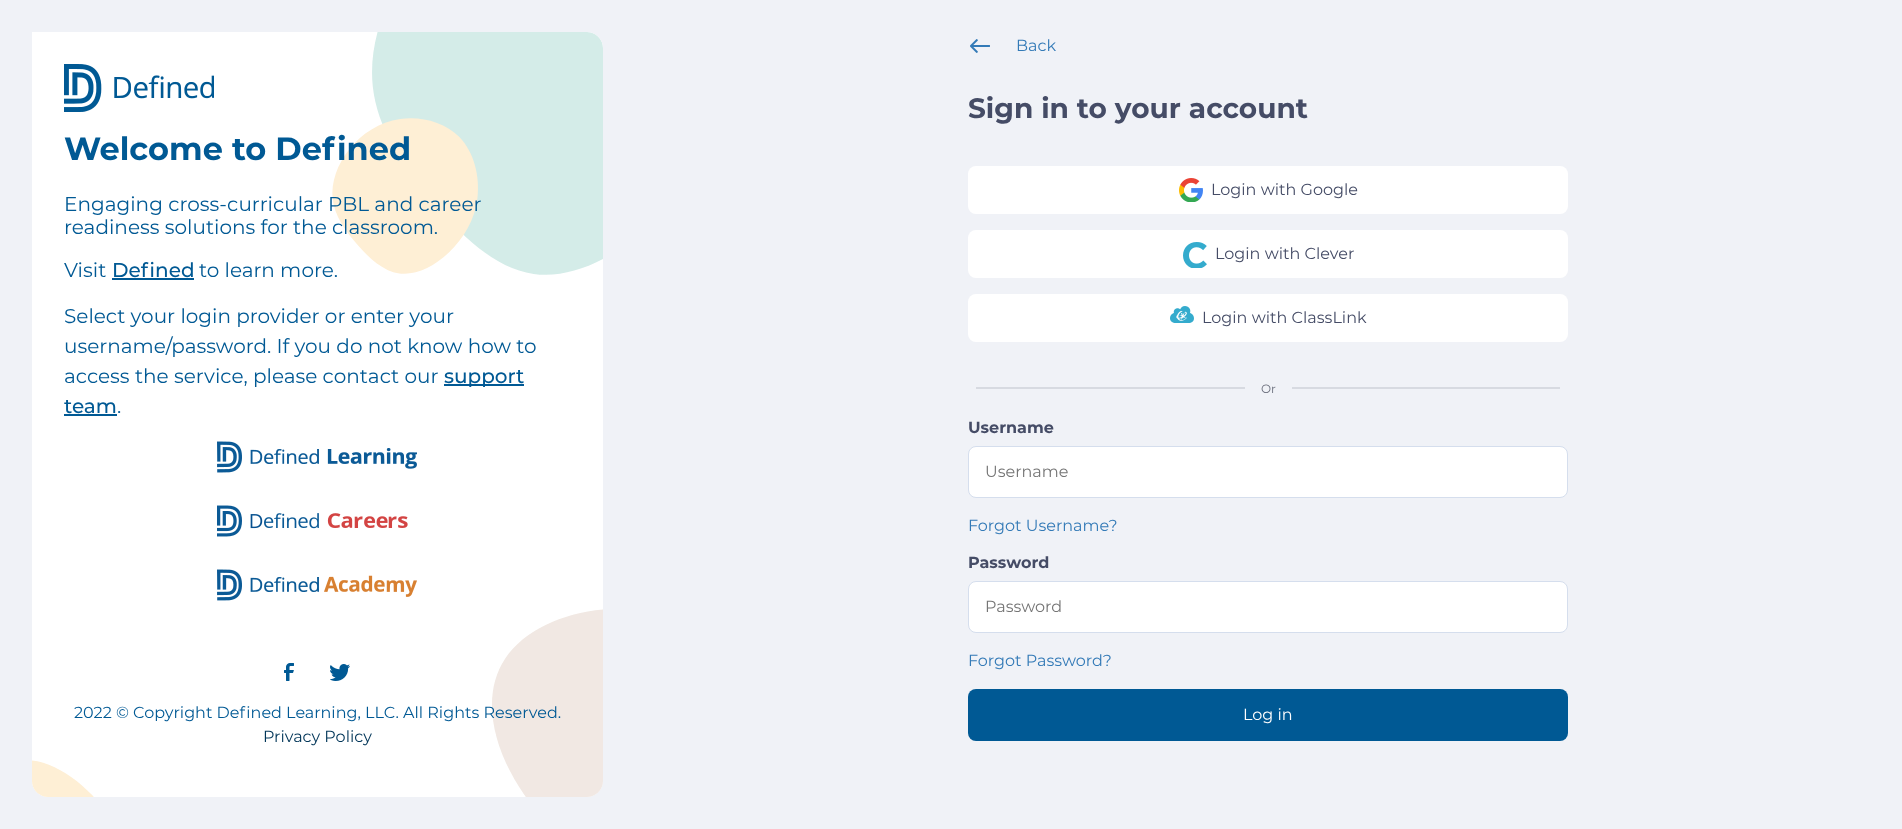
async function draw(canvas) {
  canvas.width = 1902;
  canvas.height = 829;
  const ctx = canvas.getContext('2d');
  ctx.miterLimit = 4;
  ctx.fontKerning = 'normal';
  function label(s, x, y, font, color) {
    ctx.font = font;
    ctx.fillStyle = color;
    ctx.fillText(s, x, y);
  }
  function rect(x, y, w, h, color) {
    ctx.fillStyle = color;
    ctx.fillRect(x, y, w, h);
  }
  function roundedRect(x, y, w, h, r, color) {
    ctx.fillStyle = color;
    ctx.beginPath();
    ctx.roundRect(x, y, w, h, r);
    ctx.fill();
  }
  async function image(src, x, y, w, h) {
    const img = new Image();
    img.src = src;
    await img.decode();
    ctx.drawImage(img, x, y, w, h);
  }

  rect(0, 0, 1902, 829, '#f0f2f7');
  ctx.fillStyle = '#fff';
  ctx.beginPath();
  ctx.roundRect(32, 32, 571, 765, [0, 16, 16, 16]);
  ctx.fill();
  await image('assets/img1.png', 32, 32, 571, 765);
  await image('assets/img2.png', 64, 64, 150, 48);
  label('Welcome to Defined', 64, 160, 'bold 32px Montserrat', '#005994');
  label('Engaging cross-curricular PBL and career', 64, 211, '20px Montserrat', '#005994');
  label('readiness solutions for the classroom.', 64, 234, '20px Montserrat', '#005994');
  label('Visit', 64, 277, '20px Montserrat', '#005994');
  label('Defined', 112, 277, '500 20px Montserrat', '#005994');
  rect(112, 278, 82, 2, '#005994');
  label('to learn more.', 199, 277, '20px Montserrat', '#005994');
  label('Select your login provider or enter your', 64, 323, '20px Montserrat', '#005994');
  label('username/password. If you do not know how to', 64, 353, '20px Montserrat', '#005994');
  label('access the service, please contact our', 64, 383, '20px Montserrat', '#005994');
  rect(444, 384, 80, 2, '#005994');
  label('support', 444, 383, '500 20px Montserrat', '#005994');
  label('team', 64, 413, '500 20px Montserrat', '#005994');
  rect(64, 414, 53, 2, '#005994');
  label('.', 117, 413, '20px Montserrat', '#005994');
  await image('assets/img3.png', 217, 441, 200, 32);
  await image('assets/img4.png', 217, 505, 191, 32);
  await image('assets/img5.png', 217, 569, 200, 32);
  await image('assets/img6.png', 284, 663, 10, 18);
  await image('assets/img7.png', 330, 664, 20, 17);
  label('2022 © Copyright Defined Learning, LLC. All Rights Reserved.', 74, 718, '16px Montserrat', '#005994');
  label('Privacy Policy', 263, 742, '16px Montserrat', '#003558');
  await image('assets/img8.png', 970, 39, 20, 14);
  label('Back', 1016, 51, '16px Montserrat', '#337ab7');
  label('Sign in to your account', 968, 118, 'bold 28px Montserrat', '#454c66');
  roundedRect(968, 166, 600, 48, 8, '#fff');
  await image('assets/img9.png', 1179, 178, 24, 24);
  label('Login with Google', 1211, 195, '16px Montserrat', '#454c66');
  roundedRect(968, 230, 600, 48, 8, '#fff');
  await image('assets/img10.png', 1183, 242, 24, 26);
  label('Login with Clever', 1215, 259, '16px Montserrat', '#454c66');
  roundedRect(968, 294, 600, 48, 8, '#fff');
  await image('assets/img11.png', 1170, 306, 24, 17);
  label('Login with ClassLink', 1202, 323, '16px Montserrat', '#454c66');
  rect(976, 387, 269, 2, '#d7dae1');
  label('Or', 1261, 393, '12px Montserrat', '#6a6e7c');
  rect(1292, 387, 268, 2, '#d7dae1');
  label('Username', 968, 433, 'bold 16px Montserrat', '#454c66');
  ctx.fillStyle = '#fff';
  ctx.beginPath();
  ctx.roundRect(968.5, 446.5, 599, 51, 7.5);
  ctx.fill();
  ctx.strokeStyle = '#d5deed';
  ctx.stroke();
  label('Username', 985, 477, '16px Montserrat', '#757575');
  label('Forgot Username?', 968, 531, '16px Montserrat', '#337ab7');
  label('Password', 968, 568, 'bold 16px Montserrat', '#454c66');
  ctx.fillStyle = '#fff';
  ctx.beginPath();
  ctx.roundRect(968.5, 581.5, 599, 51, 7.5);
  ctx.fill();
  ctx.stroke();
  label('Password', 985, 612, '16px Montserrat', '#757575');
  label('Forgot Password?', 968, 666, '16px Montserrat', '#337ab7');
  roundedRect(968, 689, 600, 52, 8, '#005994');
  label('Log in', 1243, 720, '16px Montserrat', '#fff');
}

draw(document.querySelector('canvas'));
